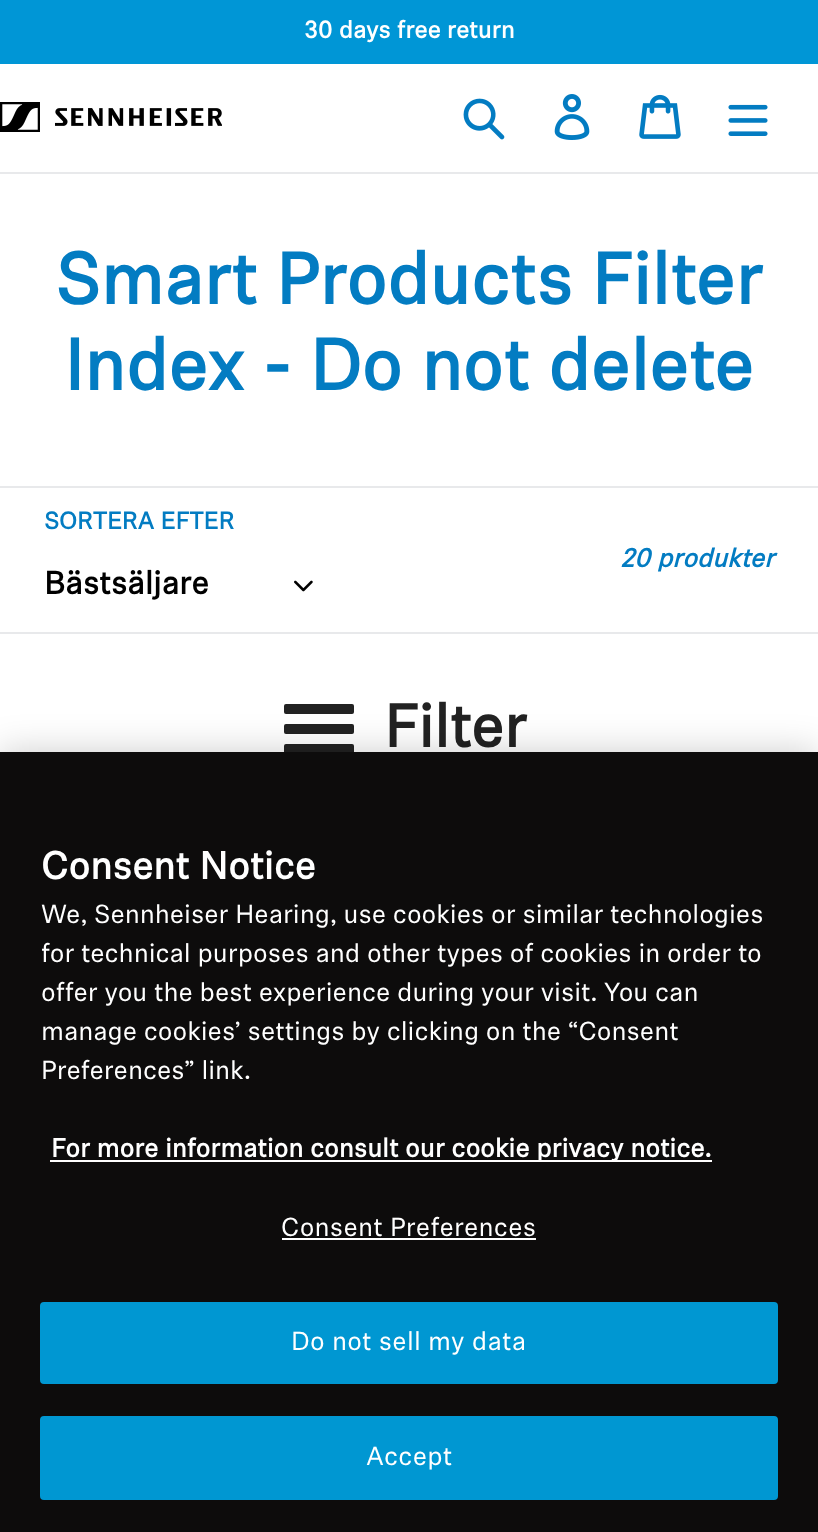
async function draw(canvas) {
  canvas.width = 818;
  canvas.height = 1532;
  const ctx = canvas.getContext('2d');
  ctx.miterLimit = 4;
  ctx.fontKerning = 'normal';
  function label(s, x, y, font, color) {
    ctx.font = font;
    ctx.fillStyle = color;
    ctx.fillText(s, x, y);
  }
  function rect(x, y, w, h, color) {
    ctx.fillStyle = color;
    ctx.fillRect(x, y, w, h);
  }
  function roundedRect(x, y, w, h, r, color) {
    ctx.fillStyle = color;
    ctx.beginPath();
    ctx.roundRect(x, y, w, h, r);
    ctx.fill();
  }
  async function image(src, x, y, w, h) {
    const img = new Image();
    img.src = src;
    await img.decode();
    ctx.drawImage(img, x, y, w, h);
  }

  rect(0, 0, 818, 1532, '#fff');
  rect(0, 0, 818, 64, '#0096d6');
  label('30 days free return', 304, 38, 'bold 24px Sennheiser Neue', '#fff');
  rect(0, 172, 818, 2, '#e8e9eb');
  await image('assets/img1.png', 0, 102, 222, 30);
  await image('assets/img2.png', 463, 98, 42, 42);
  await image('assets/img3.png', 554, 94, 36, 46);
  await image('assets/img4.png', 639, 94, 42, 45);
  await image('assets/img5.png', 728, 104, 40, 32);
  label('Smart Products Filter', 55, 304, 'bold 72px Sennheiser Neue', '#037cc2');
  label('Index - Do not delete', 64, 390, 'bold 72px Sennheiser Neue', '#037cc2');
  rect(0, 486, 818, 2, '#e8e9eb');
  rect(0, 632, 818, 2, '#e8e9eb');
  label('SORTERA EFTER', 44, 529, 'bold 24px Sennheiser Neue', '#037cc2');
  label('Bästsäljare', 44, 594, 'bold 32px Sennheiser Neue', '#000');
  await image('assets/img6.png', 294, 580, 19, 12);
  label('20 produkter', 620, 567, 'italic bold 26px Sennheiser Neue', '#037cc2');
  roundedRect(284, 724, 70, 10, 2, '#222');
  roundedRect(284, 704, 70, 10, 2, '#222');
  roundedRect(284, 744, 70, 10, 2, '#222');
  label('Filter', 384, 747, 'bold 60px Sennheiser Neue', '#222');
  ctx.fillStyle = '#00000033';
  ctx.filter = 'blur(18px)';
  ctx.beginPath();
  ctx.rect(0, 752, 818, 780);
  ctx.fill();
  ctx.filter = 'none';
  rect(0, 752, 818, 780, '#0d0c0c');
  label('Consent Notice', 41, 879, 'bold 38.5px Sennheiser Neue', '#fff');
  label('We, Sennheiser Hearing, use cookies or similar technologies', 41, 923, '26px Sennheiser Neue', '#fff');
  label('for technical purposes and other types of cookies in order to', 41, 962, '26px Sennheiser Neue', '#fff');
  label('offer you the best experience during your visit. You can', 41, 1001, '26px Sennheiser Neue', '#fff');
  label('manage cookies’ settings by clicking on the “Consent', 41, 1040, '26px Sennheiser Neue', '#fff');
  label('Preferences” link.', 41, 1079, '26px Sennheiser Neue', '#fff');
  rect(50, 1160, 662, 2, '#fff');
  label('For more information consult our cookie privacy notice.', 51, 1157, 'bold 26px Sennheiser Neue', '#fff');
  ctx.letterSpacing = '0.25px';
  label('Consent Preferences', 281, 1236, '26px Sennheiser Neue', '#fff');
  rect(282, 1238, 254, 2, '#fff');
  ctx.fillStyle = '#0097d2';
  ctx.beginPath();
  ctx.roundRect(41, 1303, 736, 80, 3);
  ctx.fill();
  ctx.strokeStyle = '#0097d2';
  ctx.lineWidth = 2;
  ctx.stroke();
  label('Do not sell my data', 291, 1350, '26px Sennheiser Neue', '#fff');
  ctx.fillStyle = '#0097d2';
  ctx.beginPath();
  ctx.roundRect(41, 1417, 736, 82, 3);
  ctx.fill();
  ctx.stroke();
  label('Accept', 366, 1465, '26px Sennheiser Neue', '#fff');
}

draw(document.querySelector('canvas'));
